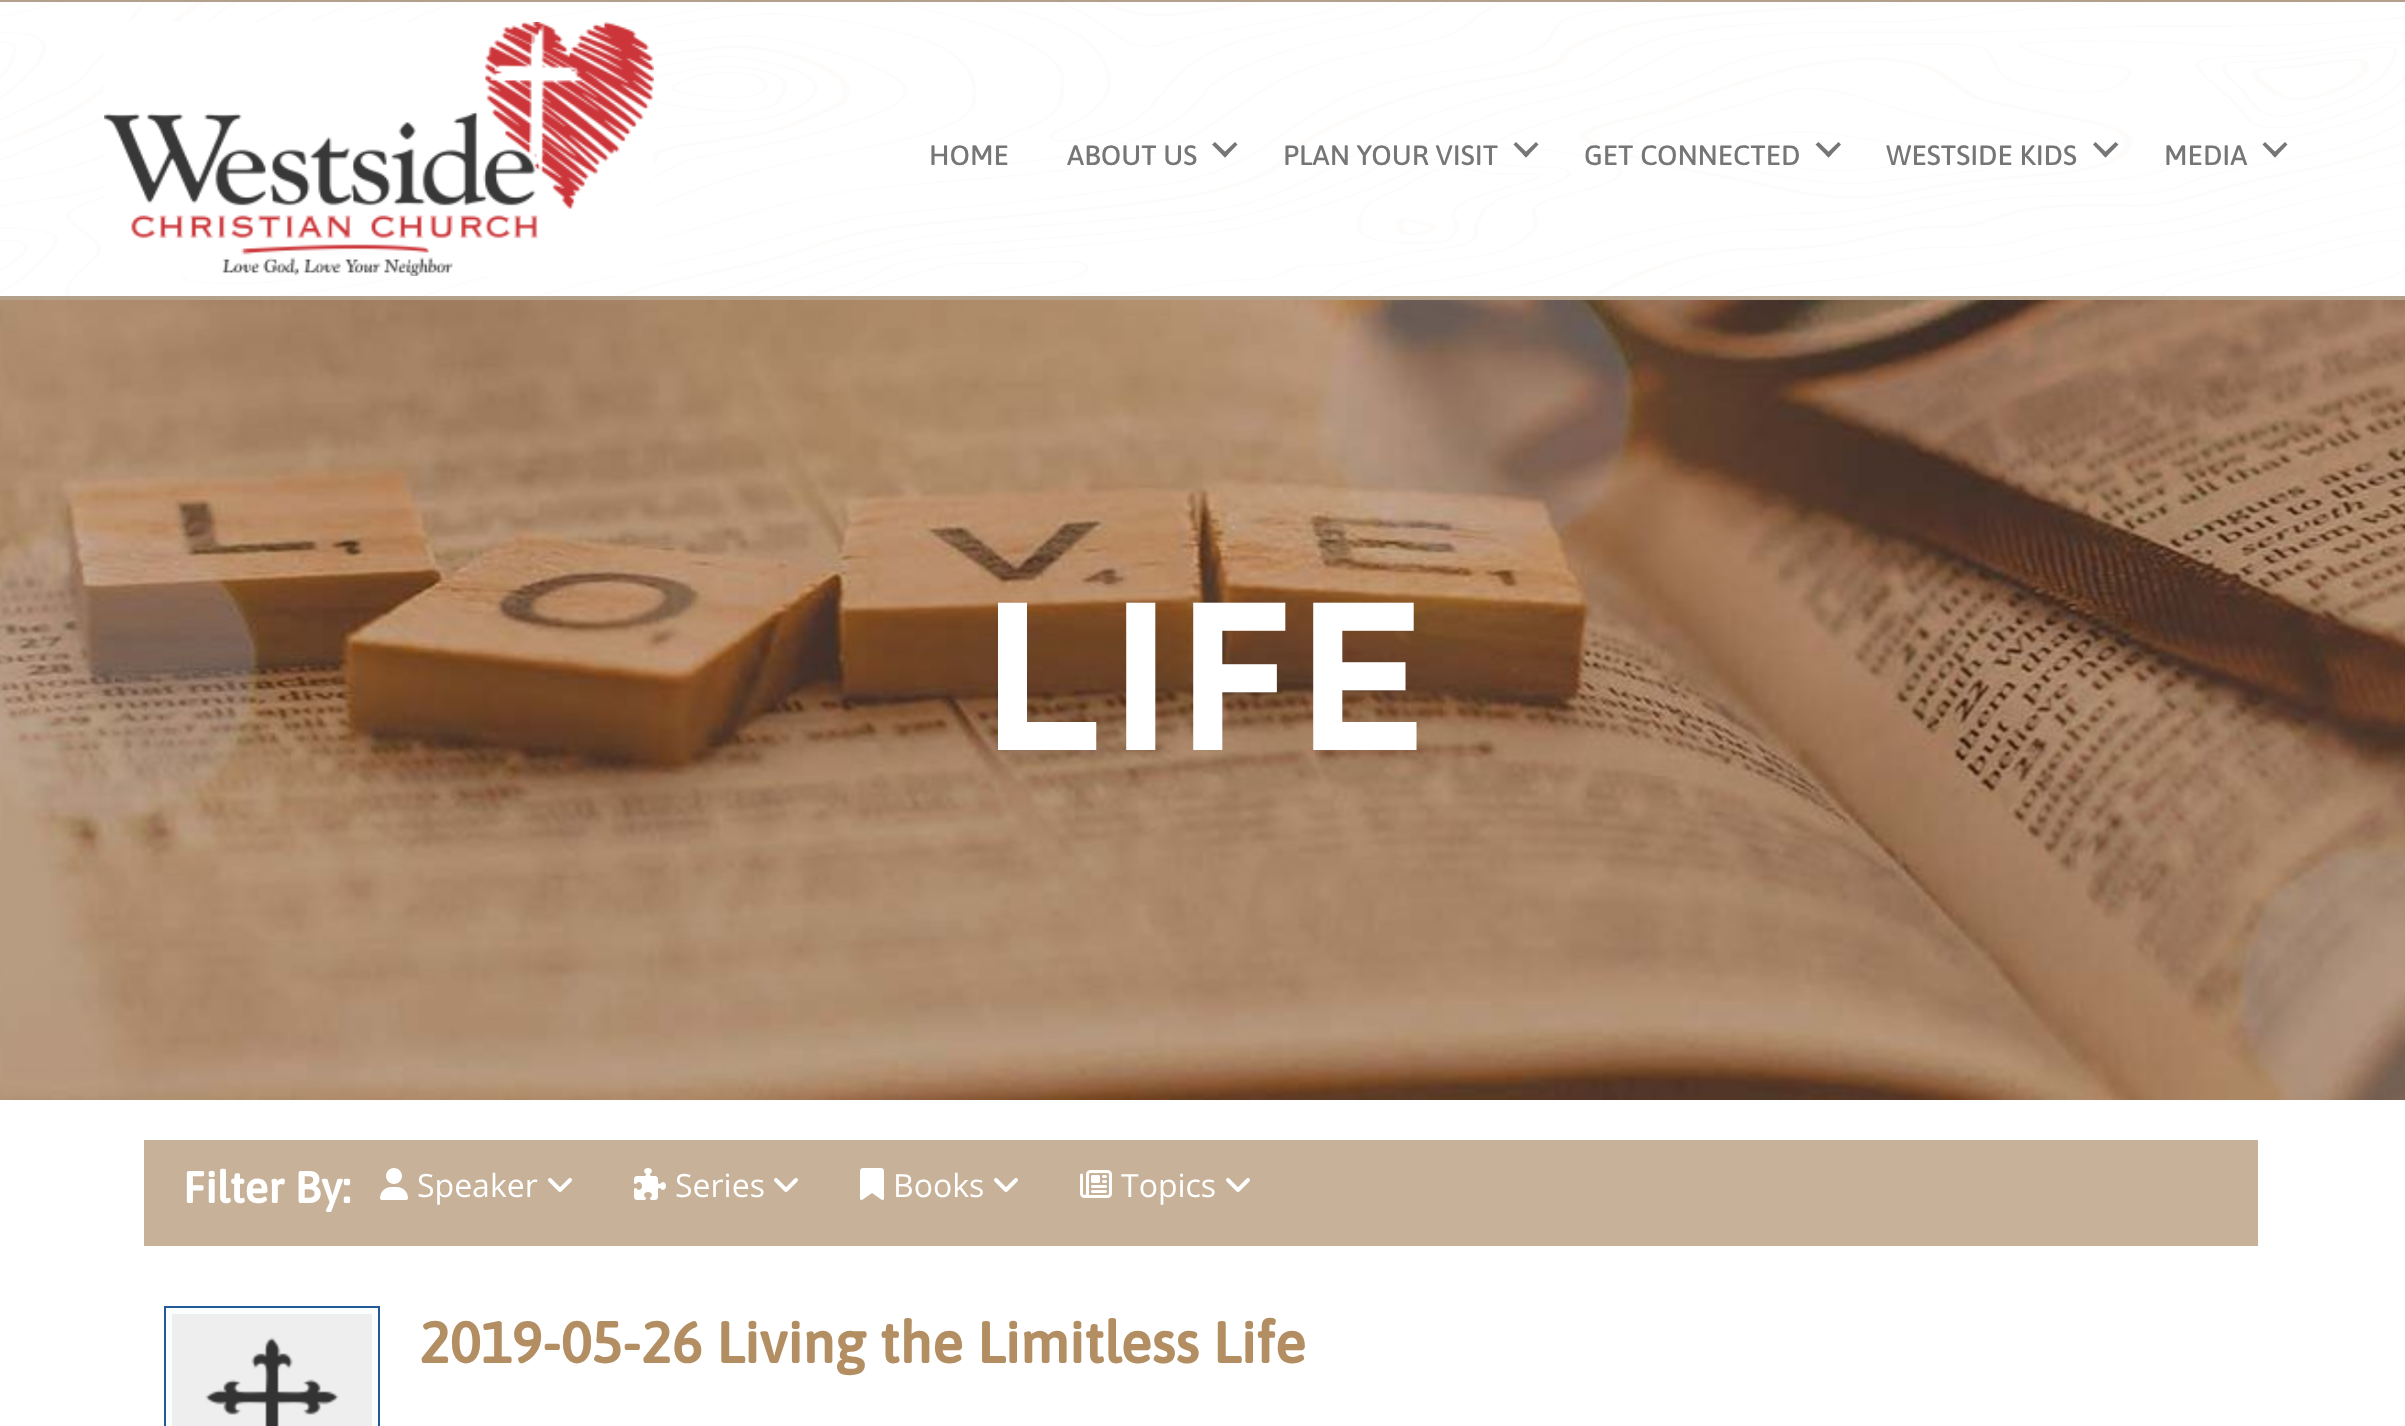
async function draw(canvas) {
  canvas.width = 2405;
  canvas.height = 1426;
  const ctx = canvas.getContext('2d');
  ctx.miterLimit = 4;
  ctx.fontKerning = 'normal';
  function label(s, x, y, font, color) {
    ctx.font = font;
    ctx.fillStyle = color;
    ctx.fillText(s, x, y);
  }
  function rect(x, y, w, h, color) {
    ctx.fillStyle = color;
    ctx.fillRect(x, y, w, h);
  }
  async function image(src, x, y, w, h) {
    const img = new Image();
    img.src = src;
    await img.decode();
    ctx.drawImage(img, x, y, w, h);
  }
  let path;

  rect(0, 0, 2405, 1426, '#fff');
  rect(0, 0, 2405, 2, '#b2a08a');
  rect(0, 296, 2405, 4, '#b2a08a');
  await image('assets/img1.png', 0, 2, 2405, 294);
  await image('assets/img2.png', 104, 22, 550, 254);
  label('HOME', 929, 165, '500 28px Asap', '#767676');
  label('ABOUT US', 1067, 165, '500 28px Asap', '#767676');
  path = new Path2D('M1235 142L1237.5 144.5L1225 157.5L1222 154.5Z');
  ctx.fill(path);
  path = new Path2D('M1215 142L1228 154.5L1225 157.5L1212 144.5Z');
  ctx.fill(path);
  label('PLAN YOUR VISIT', 1283, 165, '500 28px Asap', '#767676');
  path = new Path2D('M1536 142L1538.5 144.5L1526 157.5L1523 154.5Z');
  ctx.fill(path);
  path = new Path2D('M1516 142L1529 154.5L1526 157.5L1513.5 144.5Z');
  ctx.fill(path);
  label('GET CONNECTED', 1584, 165, '500 28px Asap', '#767676');
  path = new Path2D('M1838.5 142L1841 144.5L1828.5 157.5L1825.5 154.5Z');
  ctx.fill(path);
  path = new Path2D('M1818.5 142L1831.5 154.5L1828.5 157.5L1815.5 144.5Z');
  ctx.fill(path);
  label('WESTSIDE KIDS', 1886, 165, '500 28px Asap', '#767676');
  path = new Path2D('M2115.5 142L2118.5 144.5L2105.5 157.5L2102.5 154.5Z');
  ctx.fill(path);
  path = new Path2D('M2095.5 142L2108.5 154.5L2105.5 157.5L2093 144.5Z');
  ctx.fill(path);
  label('MEDIA', 2164, 165, '500 28px Asap', '#767676');
  path = new Path2D('M2285 142L2287.5 144.5L2275 157.5L2272 154.5Z');
  ctx.fill(path);
  path = new Path2D('M2265 142L2278 154.5L2275 157.5L2262.5 144.5Z');
  ctx.fill(path);
  await image('assets/img3.png', 0, 300, 2405, 800);
  label('LIFE', 979, 750, '100 200px Josefin Sans', '#fff');
  rect(144, 1140, 2114, 106, '#c7b198');
  label('Filter By:', 183, 1203, 'bold 44px Asap', '#fff');
  await image('assets/img4.png', 380, 1168, 28, 32);
  label('Speaker', 417, 1197, '32px Open Sans', '#fff');
  await image('assets/img5.png', 548, 1178, 24, 14);
  await image('assets/img6.png', 634, 1168, 32, 32);
  label('Series', 675, 1197, '32px Open Sans', '#fff');
  await image('assets/img5.png', 774, 1178, 24, 14);
  await image('assets/img7.png', 860, 1168, 24, 32);
  label('Books', 893, 1197, '32px Open Sans', '#fff');
  await image('assets/img5.png', 994, 1178, 24, 14);
  await image('assets/img8.png', 1080, 1170, 32, 28);
  label('Topics', 1121, 1197, '32px Open Sans', '#fff');
  await image('assets/img5.png', 1226, 1178, 24, 14);
  ctx.fillStyle = '#fbfeff';
  ctx.beginPath();
  ctx.rect(165, 1307, 214, 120);
  ctx.fill();
  ctx.strokeStyle = '#205b96';
  ctx.lineWidth = 2;
  ctx.stroke();
  await image('assets/img9.png', 172, 1314, 200, 112);
  label('2019-05-26 Living the Limitless Life', 419, 1363, 'bold 57.6px Asap', '#b28e62');
}

draw(document.querySelector('canvas'));
